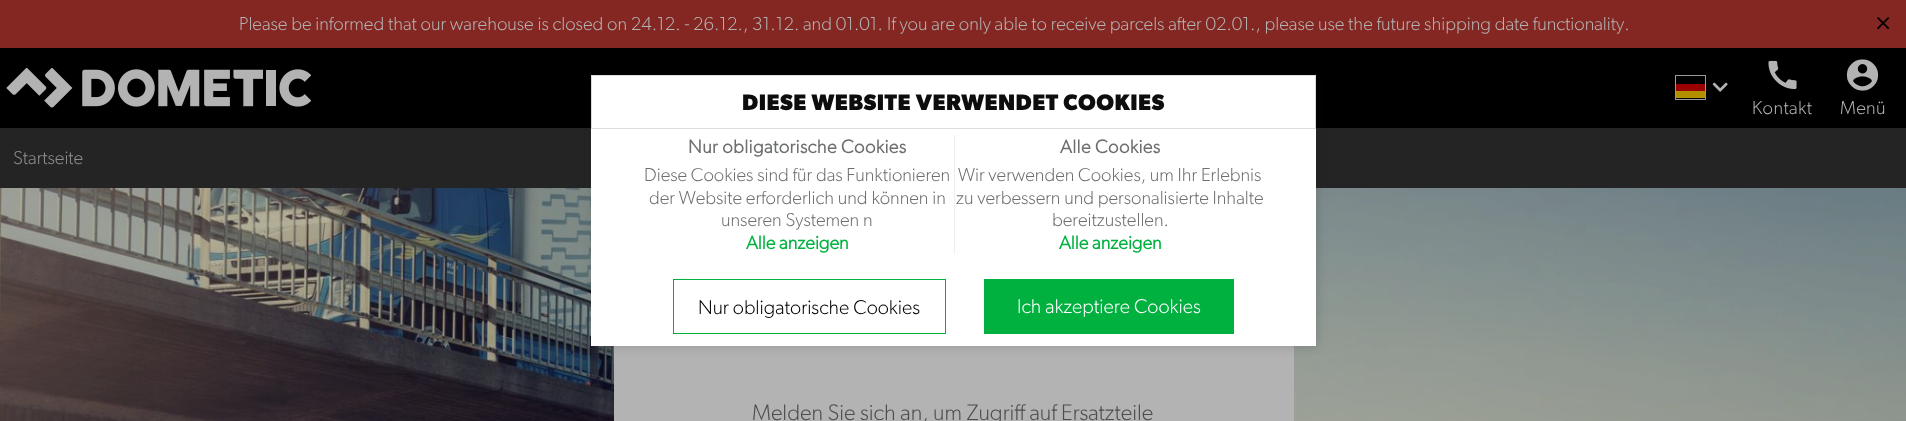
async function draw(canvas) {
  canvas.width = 1906;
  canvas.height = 421;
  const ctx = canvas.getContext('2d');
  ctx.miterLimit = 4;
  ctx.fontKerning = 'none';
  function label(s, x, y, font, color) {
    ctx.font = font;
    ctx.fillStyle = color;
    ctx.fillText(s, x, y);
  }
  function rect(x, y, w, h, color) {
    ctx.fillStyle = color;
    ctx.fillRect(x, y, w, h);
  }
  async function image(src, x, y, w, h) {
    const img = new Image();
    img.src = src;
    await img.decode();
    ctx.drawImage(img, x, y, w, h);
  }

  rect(0, 0, 1906, 421, '#fff');
  rect(0, 0, 1906, 48, '#842621');
  label('Please be informed that our warehouse is closed on 24.12. - 26.12., 31.12. and 01.01.', 239, 30, '300 18.75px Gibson', '#b3b3b3');
  label('If you are only able to receive parcels after 02.01., please use the future shipping date functionality.', 887, 30, '300 18.75px Gibson', '#b3b3b3');
  await image('assets/img1.png', 1877, 17, 13, 13);
  rect(0, 48, 1906, 80, '#000');
  await image('assets/img2.png', 6, 68, 305, 40);
  ctx.strokeStyle = '#9b9b9b';
  ctx.strokeRect(1675.5, 75.5, 30, 24);
  rect(1676, 91, 29, 7, '#b39000');
  rect(1676, 84, 29, 7, '#9b0000');
  await image('assets/img3.png', 1712, 82, 16, 10);
  await image('assets/img4.png', 1768, 60, 29, 30);
  ctx.letterSpacing = '0.4px';
  label('Kontakt', 1752, 114, '300 18.75px Gibson', '#b3b3b3');
  await image('assets/img5.png', 1846, 59, 33, 32);
  label('Menü', 1840, 114, '300 18.75px Gibson', '#b3b3b3');
  rect(0, 128, 1906, 60, '#242424');
  ctx.letterSpacing = '0px';
  label('Startseite', 13, 164, '300 18.75px Gibson', '#8f8f8f');
  await image('assets/img6.png', 0, 188, 1906, 233);
  rect(614, 346, 680, 75, '#b3b3b3');
  label('Melden Sie sich an, um Zugriff auf Ersatzteile', 752, 420, '300 22.5px Gibson', '#4c4e4e');
  ctx.fillStyle = '#20202033';
  ctx.filter = 'blur(6px)';
  ctx.beginPath();
  ctx.rect(594, 78, 722, 268);
  ctx.fill();
  ctx.filter = 'none';
  rect(591, 76, 725, 270, '#fff');
  ctx.strokeStyle = '#ddd';
  ctx.strokeRect(591.5, 75.5, 724, 53);
  ctx.letterSpacing = '0.45px';
  label('DIESE WEBSITE VERWENDET COOKIES', 742, 110, 'bold 22.5px Gibson', '#0d0d0d');
  ctx.letterSpacing = '0.4px';
  label('Nur obligatorische Cookies', 688, 153, 'bold 18.75px "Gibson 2"', '#6d706f');
  ctx.letterSpacing = '0px';
  label('Diese Cookies sind für das Funktionieren', 644, 181, '300 18.75px Gibson', '#6d706f');
  label('der Website erforderlich und können in', 649, 204, '300 18.75px Gibson', '#6d706f');
  label('unseren Systemen n', 721, 226, '300 18.75px Gibson', '#6d706f');
  label('Alle anzeigen', 746, 249, 'bold 18.75px "Gibson 2"', '#00b140');
  rect(954, 135, 1, 119, '#eee');
  ctx.letterSpacing = '0.4px';
  label('Alle Cookies', 1060, 153, 'bold 18.75px "Gibson 2"', '#6d706f');
  ctx.letterSpacing = '0px';
  label('Wir verwenden Cookies, um Ihr Erlebnis', 958, 181, '300 18.75px Gibson', '#6d706f');
  label('zu verbessern und personalisierte Inhalte', 956, 204, '300 18.75px Gibson', '#6d706f');
  label('bereitzustellen.', 1052, 226, '300 18.75px Gibson', '#6d706f');
  label('Alle anzeigen', 1059, 249, 'bold 18.75px "Gibson 2"', '#00b140');
  ctx.strokeStyle = '#00b140';
  ctx.strokeRect(673.5, 279.5, 272, 54);
  label('Nur obligatorische Cookies', 698, 314, '300 20px Gibson', '#000');
  rect(984, 279, 250, 55, '#00b140');
  label('Ich akzeptiere Cookies', 1017, 313, '300 20px Gibson', '#fff');
}

draw(document.querySelector('canvas'));
